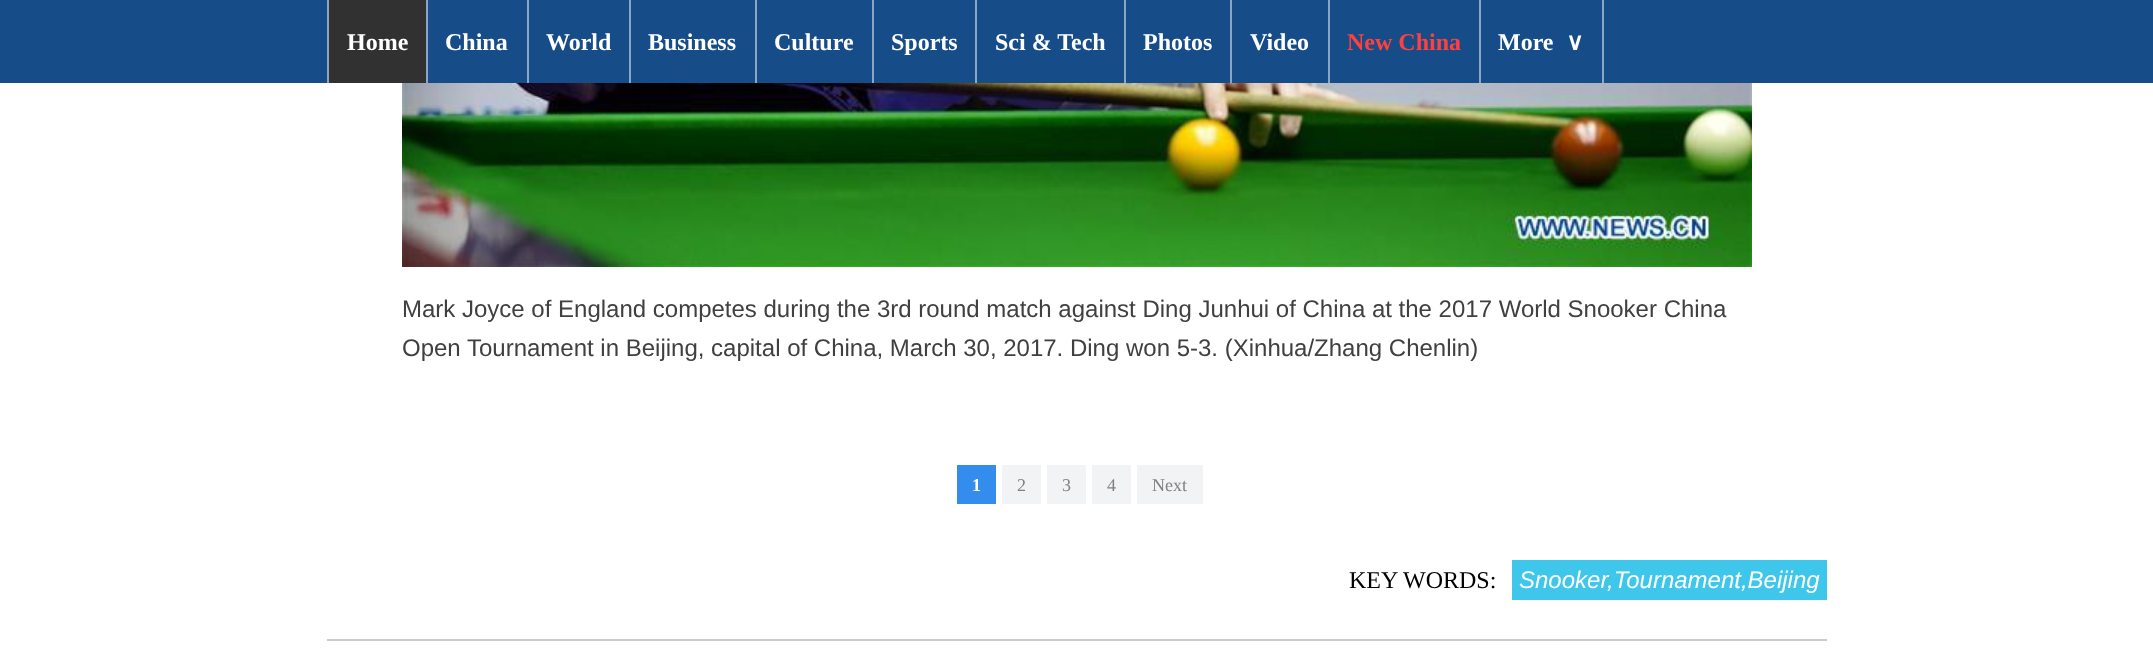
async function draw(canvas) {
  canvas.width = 2153;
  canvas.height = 650;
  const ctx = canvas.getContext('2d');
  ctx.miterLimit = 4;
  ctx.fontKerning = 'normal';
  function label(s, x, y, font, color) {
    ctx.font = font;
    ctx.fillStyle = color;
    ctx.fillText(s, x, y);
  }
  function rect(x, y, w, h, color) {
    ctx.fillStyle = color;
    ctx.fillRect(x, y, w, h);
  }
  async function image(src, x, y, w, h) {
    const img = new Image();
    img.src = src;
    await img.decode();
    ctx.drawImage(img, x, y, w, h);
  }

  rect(0, 0, 2153, 650, '#fff');
  rect(0, 0, 2153, 83, '#164c88');
  rect(329, 0, 97, 83, '#313131');
  rect(327, 0, 2, 83, '#8ba6c4');
  label('Home', 347, 50, 'bold 24px Liberation Serif', '#fff');
  rect(426, 0, 2, 83, '#8ba6c4');
  label('China', 445, 50, 'bold 24px Liberation Serif', '#fff');
  rect(527, 0, 2, 83, '#8ba6c4');
  label('World', 546, 50, 'bold 24px Liberation Serif', '#fff');
  rect(629, 0, 2, 83, '#8ba6c4');
  label('Business', 648, 50, 'bold 24px Liberation Serif', '#fff');
  rect(755, 0, 2, 83, '#8ba6c4');
  label('Culture', 774, 50, 'bold 24px Liberation Serif', '#fff');
  rect(872, 0, 2, 83, '#8ba6c4');
  label('Sports', 891, 50, 'bold 24px Liberation Serif', '#fff');
  rect(975, 0, 2, 83, '#8ba6c4');
  label('Sci & Tech', 995, 50, 'bold 24px Liberation Serif', '#fff');
  rect(1124, 0, 2, 83, '#8ba6c4');
  label('Photos', 1143, 50, 'bold 24px Liberation Serif', '#fff');
  rect(1230, 0, 2, 83, '#8ba6c4');
  label('Video', 1250, 50, 'bold 24px Liberation Serif', '#fff');
  rect(1328, 0, 2, 83, '#8ba6c4');
  label('New China', 1347, 50, 'bold 24px Liberation Serif', '#ff4040');
  rect(1602, 0, 2, 83, '#8ba6c4');
  rect(1479, 0, 2, 83, '#8ba6c4');
  label('More', 1498, 50, 'bold 24px Liberation Serif', '#fff');
  label('∨', 1566, 50, 'bold 24px DejaVu Sans', '#fff');
  await image('assets/img1.png', 402, 83, 1350, 184);
  label('Mark Joyce of England competes during the 3rd round match against Ding Junhui of China at the 2017 World Snooker China', 402, 317, '24px Liberation Sans', '#404040');
  label('Open Tournament in Beijing, capital of China, March 30, 2017. Ding won 5-3. (Xinhua/Zhang Chenlin)', 402, 356, '24px Liberation Sans', '#404040');
  rect(957, 465, 39, 39, '#348cec');
  label('1', 972, 491, 'bold 18px Liberation Serif', '#fff');
  rect(1002, 465, 39, 39, '#f1f3f5');
  label('2', 1017, 491, '18px Liberation Serif', '#818181');
  rect(1047, 465, 39, 39, '#f1f3f5');
  label('3', 1062, 491, '18px Liberation Serif', '#818181');
  rect(1092, 465, 39, 39, '#f1f3f5');
  label('4', 1107, 491, '18px Liberation Serif', '#818181');
  rect(1137, 465, 66, 39, '#f1f3f5');
  label('Next', 1152, 491, '18px Liberation Serif', '#818181');
  rect(327, 639, 1500, 2, '#ccc');
  label('KEY WORDS:', 1349, 588, '24px Liberation Serif', '#000');
  rect(1512, 560, 315, 40, '#3ec7ea');
  label('Snooker,Tournament,Beijing', 1519, 588, 'italic 24px Liberation Sans', '#fff');
}

draw(document.querySelector('canvas'));
